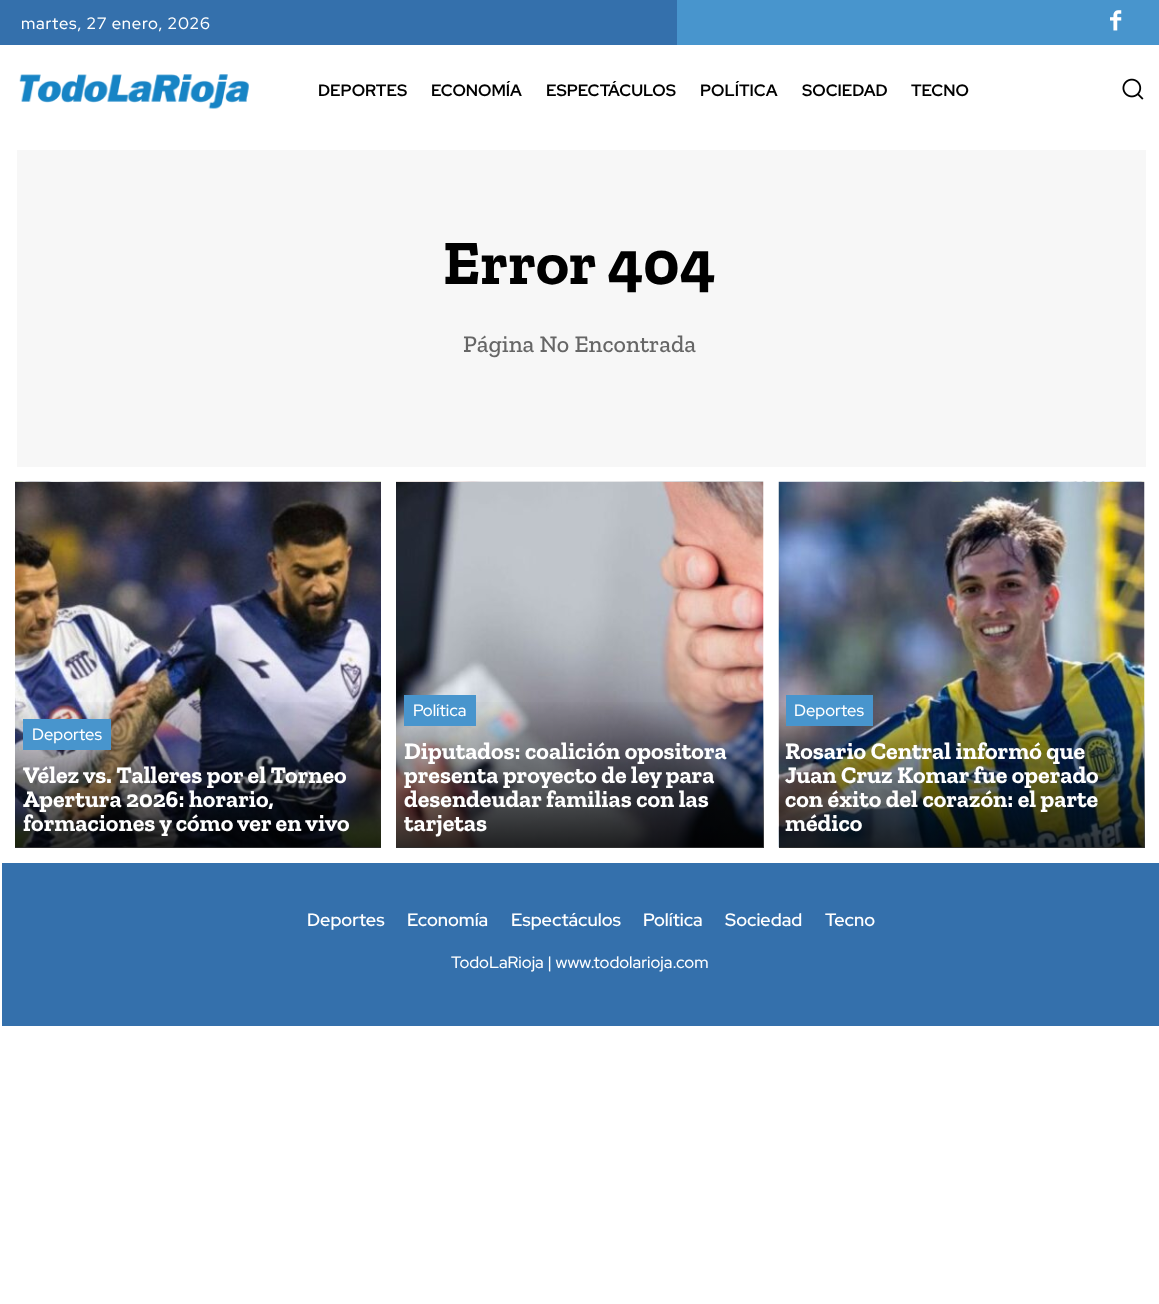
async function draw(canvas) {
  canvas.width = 1159;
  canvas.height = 1304;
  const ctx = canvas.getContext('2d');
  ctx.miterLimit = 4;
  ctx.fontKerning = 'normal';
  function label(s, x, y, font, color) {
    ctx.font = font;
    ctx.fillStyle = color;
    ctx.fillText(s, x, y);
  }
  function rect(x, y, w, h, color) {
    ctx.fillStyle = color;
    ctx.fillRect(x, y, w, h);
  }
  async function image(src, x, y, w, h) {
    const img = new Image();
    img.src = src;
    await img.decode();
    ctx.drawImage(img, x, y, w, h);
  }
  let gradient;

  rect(0, 0, 1159, 1304, '#fff');
  rect(0, 0, 677, 45, '#3470ac');
  ctx.letterSpacing = '0.75px';
  label('martes, 27 enero, 2026', 21, 29, '500 16.5px Red Hat Display', '#fff');
  rect(677, 0, 482, 45, '#4895cd');
  await image('assets/img1.png', 1110, 10, 12, 21);
  await image('assets/img2.png', 19, 74, 230, 35);
  ctx.letterSpacing = '0px';
  label('DEPORTES', 318, 96, 'bold 16.5px Red Hat Display', '#000');
  label('ECONOMÍA', 431, 96, 'bold 16.5px Red Hat Display', '#000');
  label('ESPECTÁCULOS', 546, 96, 'bold 16.5px Red Hat Display', '#000');
  label('POLÍTICA', 700, 96, 'bold 16.5px Red Hat Display', '#000');
  label('SOCIEDAD', 802, 96, 'bold 16.5px Red Hat Display', '#000');
  label('TECNO', 911, 96, 'bold 16.5px Red Hat Display', '#000');
  await image('assets/img3.png', 1122, 78, 22, 22);
  rect(17, 150, 1129, 317, '#f7f7f7');
  label('Error 404', 443, 284, 'bold 63px Zilla Slab', '#000');
  label('Página No Encontrada', 463, 352, '500 24px Zilla Slab', '#666');
  await image('assets/img4.png', 15, 481, 366, 367);
  gradient = ctx.createLinearGradient(198, 848, 198, 482);
  gradient.addColorStop(0, '#000000cc');
  gradient.addColorStop(0.41, '#00000000');
  gradient.addColorStop(1, '#00000000');
  ctx.fillStyle = gradient;
  ctx.fillRect(15, 702, 366, 146);
  rect(23, 719, 88, 31, '#4895cd');
  label('Deportes', 32, 740, '500 16.5px Red Hat Display', '#fff');
  label('Vélez vs. Talleres por el Torneo', 23, 783, 'bold 24px Zilla Slab', '#fff');
  label('Apertura 2026: horario,', 23, 807, 'bold 24px Zilla Slab', '#fff');
  label('formaciones y cómo ver en vivo', 23, 831, 'bold 24px Zilla Slab', '#fff');
  await image('assets/img5.png', 396, 481, 368, 367);
  gradient = ctx.createLinearGradient(580, 848, 580, 482);
  gradient.addColorStop(0, '#000000cc');
  gradient.addColorStop(0.41, '#00000000');
  gradient.addColorStop(1, '#00000000');
  ctx.fillStyle = gradient;
  ctx.fillRect(396, 702, 368, 146);
  rect(404, 695, 72, 31, '#4895cd');
  label('Política', 413, 716, '500 16.5px Red Hat Display', '#fff');
  label('Diputados: coalición opositora', 404, 759, 'bold 24px Zilla Slab', '#fff');
  label('presenta proyecto de ley para', 404, 783, 'bold 24px Zilla Slab', '#fff');
  label('desendeudar familias con las', 404, 807, 'bold 24px Zilla Slab', '#fff');
  label('tarjetas', 404, 831, 'bold 24px Zilla Slab', '#fff');
  await image('assets/img6.png', 778, 481, 367, 367);
  gradient = ctx.createLinearGradient(962, 848, 962, 482);
  gradient.addColorStop(0, '#000000cc');
  gradient.addColorStop(0.41, '#00000000');
  gradient.addColorStop(1, '#00000000');
  ctx.fillStyle = gradient;
  ctx.fillRect(779, 702, 366, 146);
  rect(786, 695, 87, 31, '#4895cd');
  label('Deportes', 794, 716, '500 16.5px Red Hat Display', '#fff');
  label('Rosario Central informó que', 785, 759, 'bold 24px Zilla Slab', '#fff');
  label('Juan Cruz Komar fue operado', 785, 783, 'bold 24px Zilla Slab', '#fff');
  label('con éxito del corazón: el parte', 785, 807, 'bold 24px Zilla Slab', '#fff');
  label('médico', 785, 831, 'bold 24px Zilla Slab', '#fff');
  rect(2, 863, 1157, 163, '#3470ac');
  label('Deportes', 307, 926, '600 18px Red Hat Display', '#fff');
  label('Economía', 407, 926, '600 18px Red Hat Display', '#fff');
  label('Espectáculos', 511, 926, '600 18px Red Hat Display', '#fff');
  label('Política', 643, 926, '600 18px Red Hat Display', '#fff');
  label('Sociedad', 725, 926, '600 18px Red Hat Display', '#fff');
  label('Tecno', 825, 926, '600 18px Red Hat Display', '#fff');
  label('TodoLaRioja | www.todolarioja.com', 451, 968, '500 16.5px Red Hat Display', '#fff');
}

draw(document.querySelector('canvas'));
